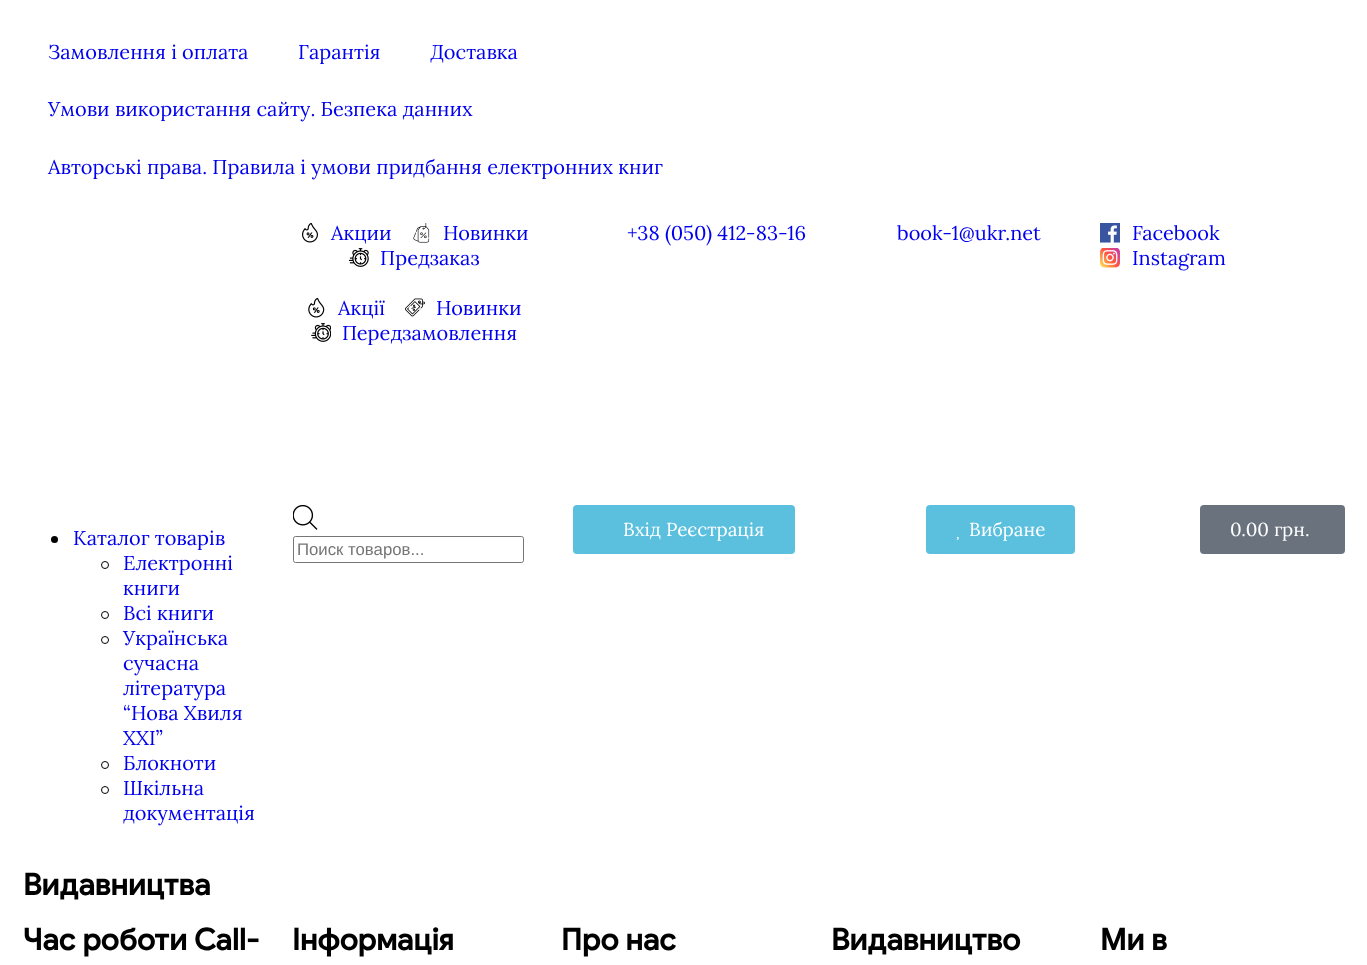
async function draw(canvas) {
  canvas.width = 1367;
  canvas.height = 965;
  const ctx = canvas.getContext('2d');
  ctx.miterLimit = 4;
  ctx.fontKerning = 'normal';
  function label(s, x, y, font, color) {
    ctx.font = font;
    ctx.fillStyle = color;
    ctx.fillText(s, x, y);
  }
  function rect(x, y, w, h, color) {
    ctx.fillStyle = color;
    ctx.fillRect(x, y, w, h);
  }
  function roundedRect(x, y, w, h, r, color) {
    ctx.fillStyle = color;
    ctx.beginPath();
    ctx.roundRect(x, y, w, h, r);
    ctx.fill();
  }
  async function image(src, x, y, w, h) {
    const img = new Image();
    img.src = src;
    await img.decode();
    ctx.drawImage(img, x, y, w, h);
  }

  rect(0, 0, 1367, 965, '#fff');
  label('Замовлення і оплата', 48, 59, '20px Lora', '#00e');
  label('Гарантія', 298, 59, '20px Lora', '#00e');
  label('Доставка', 430, 59, '20px Lora', '#00e');
  label('Умови використання сайту. Безпека данних', 48, 116, '20px Lora', '#00e');
  label('Авторські права. Правила і умови придбання електронних книг', 48, 174, '20px Lora', '#00e');
  await image('assets/img1.png', 302, 223, 16, 20);
  label('Акции', 331, 240, '20px Lora', '#00e');
  await image('assets/img2.png', 413, 223, 17, 20);
  label('Новинки', 443, 240, '20px Lora', '#00e');
  await image('assets/img3.png', 349, 248, 20, 19);
  ctx.save();
  ctx.beginPath();
  ctx.rect(293, 220, 243, 50);
  ctx.clip();
  label('Предзаказ', 380, 265, '20px Lora', '#00e');
  ctx.restore();
  await image('assets/img4.png', 308, 298, 17, 20);
  label('Акції', 338, 315, '20px Lora', '#00e');
  await image('assets/img5.png', 405, 298, 20, 19);
  label('Новинки', 436, 315, '20px Lora', '#00e');
  await image('assets/img6.png', 311, 323, 20, 19);
  ctx.save();
  ctx.beginPath();
  ctx.rect(293, 295, 243, 50);
  ctx.clip();
  label('Передзамовлення', 342, 340, '20px Lora', '#00e');
  ctx.restore();
  label('+38 (050) 412-83-16', 627, 240, '20px Lora', '#00e');
  label('book-1@ukr.net', 897, 240, '20px Lora', '#00e');
  await image('assets/img7.png', 1100, 223, 20, 20);
  label('Facebook', 1132, 240, '20px Lora', '#00e');
  await image('assets/img8.png', 1100, 248, 20, 20);
  label('Instagram', 1132, 265, '20px Lora', '#00e');
  ctx.fillStyle = '#000';
  ctx.beginPath();
  ctx.arc(54.5, 539.5, 3.5, 0, 2 * Math.PI);
  ctx.fill();
  label('Каталог товарів', 73, 545, '20px Lora', '#00e');
  ctx.beginPath();
  ctx.arc(105, 565, 3.5, 0, 2 * Math.PI);
  ctx.strokeStyle = '#000';
  ctx.stroke();
  label('Електронні', 123, 570, '20px Lora', '#00e');
  label('книги', 123, 595, '20px Lora', '#00e');
  ctx.beginPath();
  ctx.arc(105, 615, 3.5, 0, 2 * Math.PI);
  ctx.stroke();
  label('Всі книги', 123, 620, '20px Lora', '#00e');
  ctx.beginPath();
  ctx.arc(105, 640, 3.5, 0, 2 * Math.PI);
  ctx.stroke();
  label('Українська', 123, 645, '20px Lora', '#00e');
  label('сучасна', 123, 670, '20px Lora', '#00e');
  label('література', 123, 695, '20px Lora', '#00e');
  label('“Нова Хвиля', 123, 720, '20px Lora', '#00e');
  label('ХХІ”', 123, 745, '20px Lora', '#00e');
  ctx.beginPath();
  ctx.arc(105, 765, 3.5, 0, 2 * Math.PI);
  ctx.stroke();
  label('Блокноти', 123, 770, '20px Lora', '#00e');
  ctx.beginPath();
  ctx.arc(105, 790, 3.5, 0, 2 * Math.PI);
  ctx.stroke();
  label('Шкільна', 123, 795, '20px Lora', '#00e');
  label('документація', 123, 820, '20px Lora', '#00e');
  await image('assets/img9.png', 293, 505, 25, 25);
  ctx.beginPath();
  ctx.roundRect(293.5, 536.5, 230, 26, 2);
  ctx.strokeStyle = '#767676';
  ctx.stroke();
  label('Поиск товаров...', 297, 555, '16.75px Liberation Sans', '#757575');
  roundedRect(573, 505, 222, 49, 4, '#5bc0de');
  label('Вхід Реєстрація', 623, 536, '18.75px Lora', '#fff');
  roundedRect(926, 505, 149, 49, 4, '#5bc0de');
  await image('assets/img10.png', 956, 536, 3, 5);
  label('Вибране', 969, 536, '18.75px Lora', '#fff');
  roundedRect(1200, 505, 145, 49, 4, '#69727d');
  label('0.00 грн.', 1230, 536, '18.75px Lora', '#fff');
  label('Видавництва', 23, 895, 'bold 30px Google Sans', '#000');
  label('Час роботи Call-', 23, 950, 'bold 30px Google Sans', '#000');
  label('Інформація', 292, 950, 'bold 30px Google Sans', '#000');
  label('Про нас', 561, 950, 'bold 30px Google Sans', '#000');
  label('Видавництво', 831, 950, 'bold 30px Google Sans', '#000');
  label('Ми в', 1100, 950, 'bold 30px Google Sans', '#000');
}

draw(document.querySelector('canvas'));
